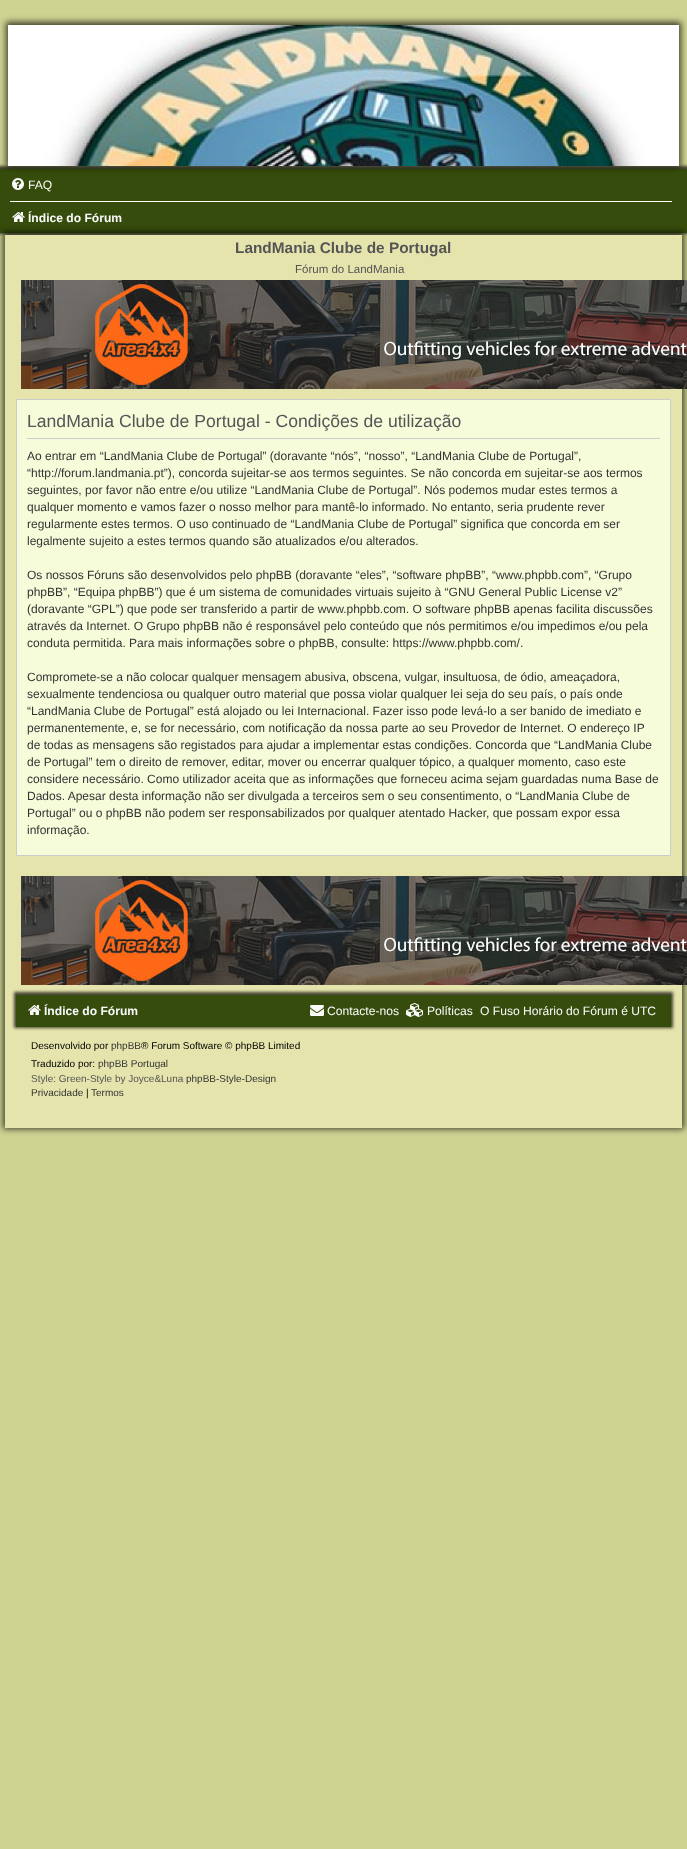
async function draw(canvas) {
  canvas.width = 687;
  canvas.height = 1849;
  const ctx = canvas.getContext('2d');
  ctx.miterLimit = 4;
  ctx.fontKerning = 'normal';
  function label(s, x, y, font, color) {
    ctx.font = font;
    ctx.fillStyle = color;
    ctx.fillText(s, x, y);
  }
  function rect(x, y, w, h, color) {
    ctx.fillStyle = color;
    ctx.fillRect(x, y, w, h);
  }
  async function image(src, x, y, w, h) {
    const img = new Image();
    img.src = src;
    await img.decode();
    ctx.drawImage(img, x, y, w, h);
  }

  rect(0, 0, 687, 1849, '#ced392');
  ctx.fillStyle = '#020202b3';
  ctx.filter = 'blur(1.5px)';
  ctx.beginPath();
  ctx.rect(-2, 166, 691, 68);
  ctx.fill();
  ctx.filter = 'none';
  rect(0, 169, 687, 64, '#364c0c');
  ctx.fillStyle = '#020202b3';
  ctx.filter = 'blur(3px)';
  ctx.beginPath();
  ctx.rect(6, 22, 675, 145);
  ctx.fill();
  ctx.filter = 'none';
  await image('assets/img1.png', 8, 25, 671, 141);
  await image('assets/img2.png', 12, 178, 12, 12);
  label('FAQ', 28, 189, '12.1px Liberation Sans', '#fafafa');
  rect(10, 201, 662, 1, '#fff');
  await image('assets/img3.png', 12, 212, 13, 10);
  ctx.fillStyle = '#020202b3';
  ctx.filter = 'blur(3px)';
  ctx.beginPath();
  ctx.rect(3, 232, 681, 897);
  ctx.fill();
  ctx.filter = 'none';
  label('Índice do Fórum', 28, 222, 'bold 12.1px Liberation Sans', '#fafafa');
  rect(5, 235, 677, 893, '#e5e4ac');
  label('LandMania Clube de Portugal', 235, 253, 'bold 15.4px Liberation Sans', '#555');
  label('Fórum do LandMania', 295, 273, '11.5px Liberation Sans', '#555');
  await image('assets/img4.png', 21, 280, 666, 109);
  ctx.fillStyle = '#f6fbda';
  ctx.beginPath();
  ctx.rect(16.5, 399.5, 654, 456);
  ctx.fill();
  ctx.strokeStyle = '#ccc';
  ctx.stroke();
  rect(27, 438, 633, 1, '#ccc');
  label('LandMania Clube de Portugal - Condições de utilização', 27, 427, '17.6px Liberation Sans', '#555');
  label('Ao entrar em “LandMania Clube de Portugal” (doravante “nós”, “nosso”, “LandMania Clube de Portugal”,', 27, 460, '12px Liberation Sans', '#333');
  label('“http://forum.landmania.pt”), concorda sujeitar-se aos termos seguintes. Se não concorda em sujeitar-se aos termos', 27, 477, '12px Liberation Sans', '#333');
  label('seguintes, por favor não entre e/ou utilize “LandMania Clube de Portugal”. Nós podemos mudar estes termos a', 27, 494, '12px Liberation Sans', '#333');
  label('qualquer momento e vamos fazer o nosso melhor para mantê-lo informado. No entanto, seria prudente rever', 27, 511, '12px Liberation Sans', '#333');
  label('regularmente estes termos. O uso continuado de “LandMania Clube de Portugal” significa que concorda em ser', 27, 528, '12px Liberation Sans', '#333');
  label('legalmente sujeito a estes termos quando são atualizados e/ou alterados.', 27, 545, '12px Liberation Sans', '#333');
  label('Os nossos Fóruns são desenvolvidos pelo phpBB (doravante “eles”, “software phpBB”, “www.phpbb.com”, “Grupo', 27, 579, '12px Liberation Sans', '#333');
  label('phpBB”, “Equipa phpBB”) que é um sistema de comunidades virtuais sujeito à “GNU General Public License v2”', 27, 596, '12px Liberation Sans', '#333');
  label('(doravante “GPL”) que pode ser transferido a partir de www.phpbb.com. O software phpBB apenas facilita discussões', 27, 613, '12px Liberation Sans', '#333');
  label('através da Internet. O Grupo phpBB não é responsável pelo conteúdo que nós permitimos e/ou impedimos e/ou pela', 27, 630, '12px Liberation Sans', '#333');
  label('conduta permitida. Para mais informações sobre o phpBB, consulte: https://www.phpbb.com/.', 27, 647, '12px Liberation Sans', '#333');
  label('Compromete-se a não colocar qualquer mensagem abusiva, obscena, vulgar, insultuosa, de ódio, ameaçadora,', 27, 681, '12px Liberation Sans', '#333');
  label('sexualmente tendenciosa ou qualquer outro material que possa violar qualquer lei seja do seu país, o país onde', 27, 698, '12px Liberation Sans', '#333');
  label('“LandMania Clube de Portugal” está alojado ou lei Internacional. Fazer isso pode levá-lo a ser banido de imediato e', 27, 715, '12px Liberation Sans', '#333');
  label('permanentemente, e, se for necessário, com notificação da nossa parte ao seu Provedor de Internet. O endereço IP', 27, 732, '12px Liberation Sans', '#333');
  label('de todas as mensagens são registados para ajudar a implementar estas condições. Concorda que “LandMania Clube', 27, 749, '12px Liberation Sans', '#333');
  label('de Portugal” tem o direito de remover, editar, mover ou encerrar qualquer tópico, a qualquer momento, caso este', 27, 766, '12px Liberation Sans', '#333');
  label('considere necessário. Como utilizador aceita que as informações que forneceu acima sejam guardadas numa Base de', 27, 783, '12px Liberation Sans', '#333');
  label('Dados. Apesar desta informação não ser divulgada a terceiros sem o seu consentimento, o “LandMania Clube de', 27, 800, '12px Liberation Sans', '#333');
  label('Portugal” ou o phpBB não podem ser responsabilizados por qualquer atentado Hacker, que possam expor essa', 27, 817, '12px Liberation Sans', '#333');
  label('informação.', 27, 834, '12px Liberation Sans', '#333');
  await image('assets/img4.png', 21, 876, 666, 109);
  ctx.fillStyle = '#020202b3';
  ctx.filter = 'blur(1.5px)';
  ctx.beginPath();
  ctx.rect(14, 992, 659, 36);
  ctx.fill();
  ctx.filter = 'none';
  rect(16, 995, 655, 32, '#364c0c');
  await image('assets/img3.png', 28, 1005, 13, 10);
  label('Índice do Fórum', 44, 1015, 'bold 12.1px Liberation Sans', '#fafafa');
  await image('assets/img5.png', 310, 1005, 14, 11);
  label('Contacte-nos', 327, 1015, '12.1px Liberation Sans', '#fafafa');
  await image('assets/img6.png', 406, 1003, 17, 14);
  label('Políticas', 427, 1015, '12.1px Liberation Sans', '#fafafa');
  label('O Fuso Horário do Fórum é UTC', 480, 1015, '12.1px Liberation Sans', '#fafafa');
  label('Desenvolvido por', 31, 1049, '10px Liberation Sans', '#000');
  label('phpBB', 111, 1049, '10px Liberation Sans', '#333');
  label('® Forum Software © phpBB Limited', 141, 1049, '10px Liberation Sans', '#000');
  label('Traduzido por:', 31, 1067, '10px Liberation Sans', '#000');
  label('phpBB Portugal', 98, 1067, '10px Liberation Sans', '#333');
  label('Style: Green-Style by Joyce&Luna', 31, 1082, '10px Liberation Sans', '#555');
  label('phpBB-Style-Design', 186, 1082, '10px Liberation Sans', '#333');
  label('Privacidade', 31, 1096, '10px Liberation Sans', '#333');
  label('|', 86, 1096, '10px Liberation Sans', '#000');
  label('Termos', 91, 1096, '10px Liberation Sans', '#333');
}

draw(document.querySelector('canvas'));
